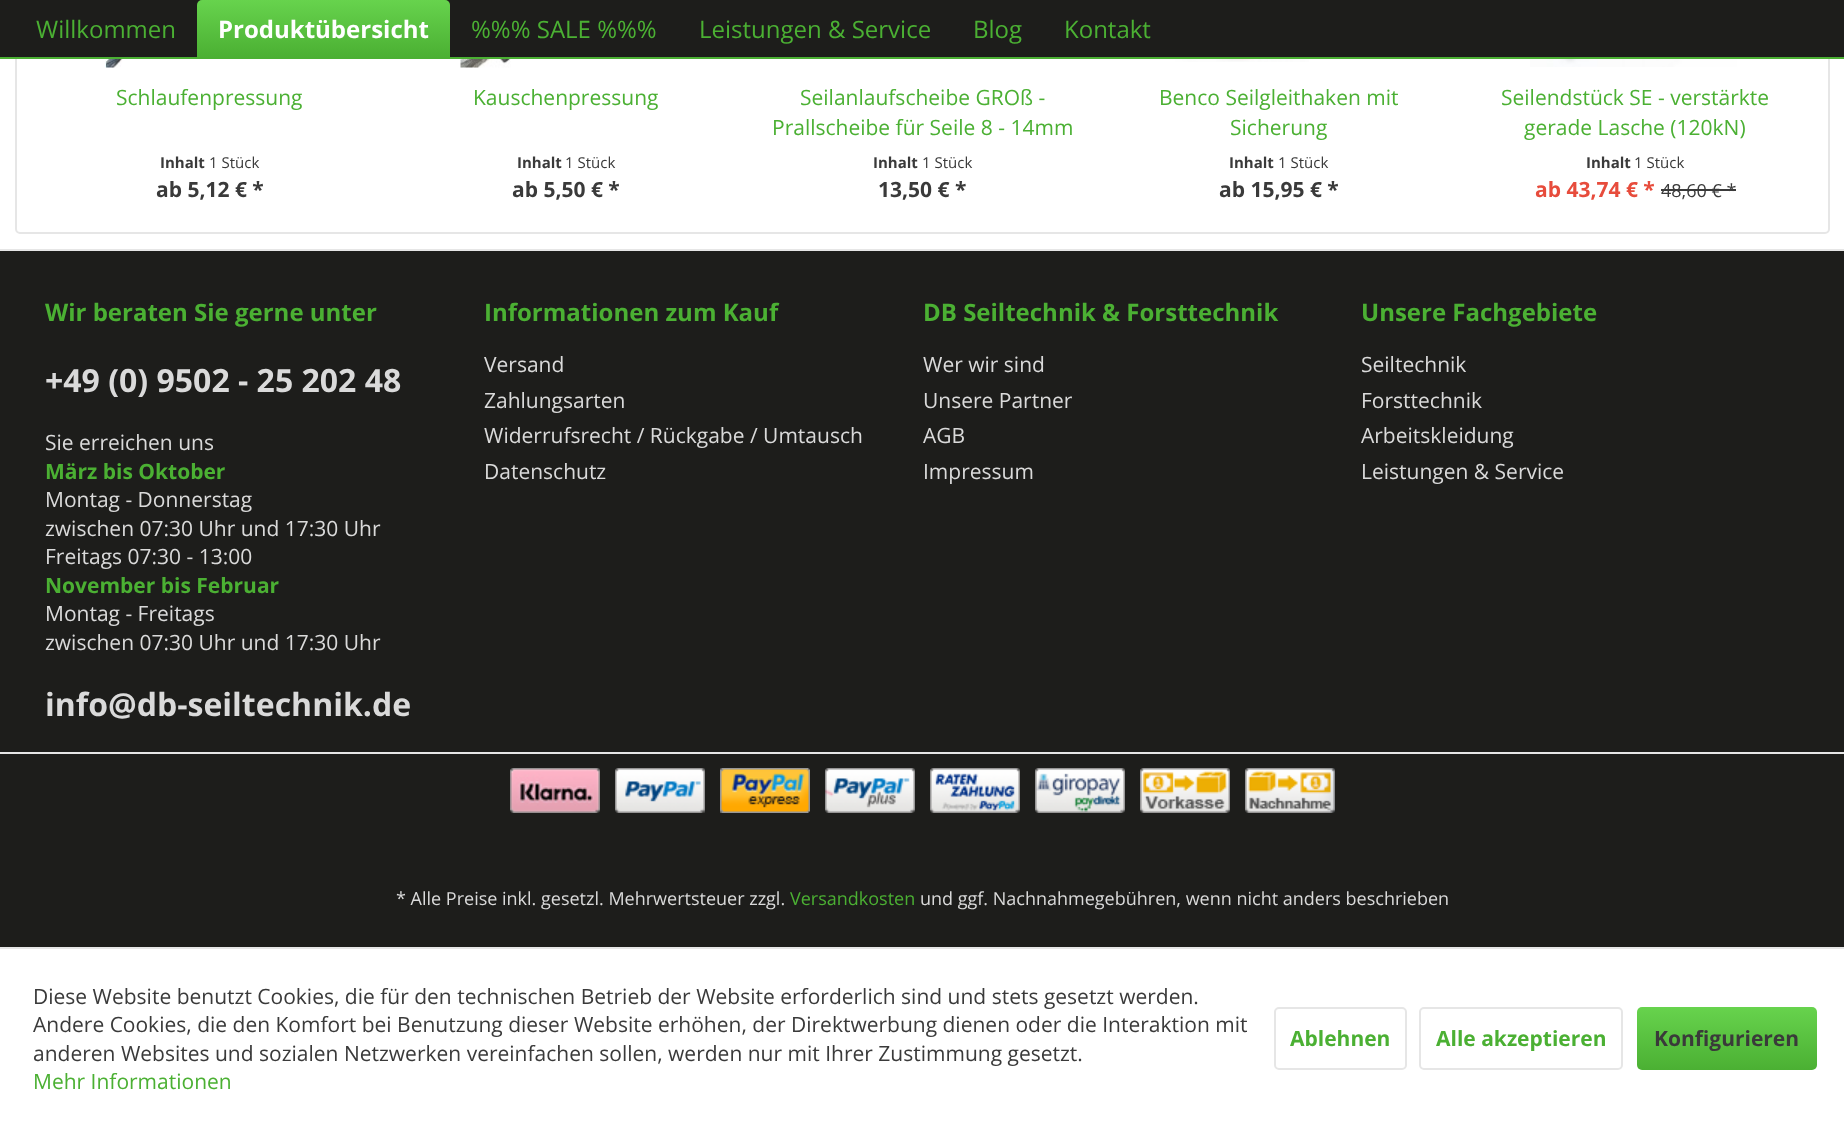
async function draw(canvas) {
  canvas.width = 1844;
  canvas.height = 1128;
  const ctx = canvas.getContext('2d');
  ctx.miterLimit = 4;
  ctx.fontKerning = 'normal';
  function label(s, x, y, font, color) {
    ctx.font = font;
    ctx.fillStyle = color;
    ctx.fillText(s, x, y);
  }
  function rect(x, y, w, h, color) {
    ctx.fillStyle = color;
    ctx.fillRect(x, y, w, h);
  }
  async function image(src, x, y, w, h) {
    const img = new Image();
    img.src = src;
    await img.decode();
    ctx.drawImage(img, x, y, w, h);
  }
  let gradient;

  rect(0, 0, 1844, 1128, '#1d1d1b');
  rect(0, 59, 1844, 190, '#fff');
  ctx.beginPath();
  ctx.roundRect(16, -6, 1813, 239, 4);
  ctx.strokeStyle = '#e6e6e6';
  ctx.lineWidth = 2;
  ctx.stroke();
  rect(15, 0, 1815, 57, '#1d1d1b');
  rect(0, 57, 1844, 2, '#4bb033');
  label('Willkommen', 36, 38, '24px Open Sans', '#4bb033');
  gradient = ctx.createLinearGradient(323, 0, 323, 57);
  gradient.addColorStop(0, '#67d34d');
  gradient.addColorStop(1, '#4bb033');
  ctx.fillStyle = gradient;
  ctx.beginPath();
  ctx.roundRect(197, 0, 253, 57, [5, 5, 0, 0]);
  ctx.fill();
  label('Produktübersicht', 218, 38, 'bold 24px Open Sans', '#fff');
  label('%%% SALE %%%', 471, 38, '24px Open Sans', '#4bb033');
  label('Leistungen & Service', 699, 38, '24px Open Sans', '#4bb033');
  label('Blog', 973, 38, '24px Open Sans', '#4bb033');
  label('Kontakt', 1064, 38, '24px Open Sans', '#4bb033');
  await image('assets/img1.png', 105, 59, 76, 9);
  label('Schlaufenpressung', 116, 105, '21px Open Sans', '#4bb033');
  label('Inhalt', 160, 168, 'bold 15px Open Sans', '#3a3a3a');
  label('1 Stück', 209, 168, '15px Open Sans', '#3a3a3a');
  label('ab 5,12 € *', 156, 197, 'bold 21px Open Sans', '#3a3a3a');
  await image('assets/img2.png', 460, 59, 110, 9);
  label('Kauschenpressung', 473, 105, '21px Open Sans', '#4bb033');
  label('Inhalt', 517, 168, 'bold 15px Open Sans', '#3a3a3a');
  label('1 Stück', 565, 168, '15px Open Sans', '#3a3a3a');
  label('ab 5,50 € *', 512, 197, 'bold 21px Open Sans', '#3a3a3a');
  label('Seilanlaufscheibe GROß -', 800, 105, '21px Open Sans', '#4bb033');
  label('Prallscheibe für Seile 8 - 14mm', 772, 135, '21px Open Sans', '#4bb033');
  label('Inhalt', 873, 168, 'bold 15px Open Sans', '#3a3a3a');
  label('1 Stück', 922, 168, '15px Open Sans', '#3a3a3a');
  label('13,50 € *', 878, 197, 'bold 21px Open Sans', '#3a3a3a');
  await image('assets/img3.png', 1175, 59, 134, 3);
  label('Benco Seilgleithaken mit', 1159, 105, '21px Open Sans', '#4bb033');
  label('Sicherung', 1230, 135, '21px Open Sans', '#4bb033');
  label('Inhalt', 1229, 168, 'bold 15px Open Sans', '#3a3a3a');
  label('1 Stück', 1278, 168, '15px Open Sans', '#3a3a3a');
  label('ab 15,95 € *', 1219, 197, 'bold 21px Open Sans', '#3a3a3a');
  await image('assets/img4.png', 1530, 59, 207, 8);
  label('Seilendstück SE - verstärkte', 1501, 105, '21px Open Sans', '#4bb033');
  label('gerade Lasche (120kN)', 1524, 135, '21px Open Sans', '#4bb033');
  label('Inhalt', 1586, 168, 'bold 15px Open Sans', '#3a3a3a');
  label('1 Stück', 1634, 168, '15px Open Sans', '#3a3a3a');
  label('ab 43,74 € *', 1535, 197, 'bold 21px Open Sans', '#e74c3c');
  label('48,60 € *', 1661, 197, '18px Open Sans', '#3a3a3a');
  rect(1661, 189, 75, 2, '#3a3a3a');
  rect(0, 249, 1844, 2, '#e6e6e6');
  rect(0, 752, 1844, 2, '#e6e6e6');
  label('Wir beraten Sie gerne unter', 45, 321, 'bold 24px Open Sans', '#4bb033');
  label('+49 (0) 9502 - 25 202 48', 45, 392, 'bold 32px Open Sans', '#dadada');
  label('Sie erreichen uns', 45, 450, '21px Open Sans', '#dadada');
  label('März bis Oktober', 45, 479, 'bold 21px Open Sans', '#4bb033');
  label('Montag - Donnerstag', 45, 507, '21px Open Sans', '#dadada');
  label('zwischen 07:30 Uhr und 17:30 Uhr', 45, 536, '21px Open Sans', '#dadada');
  label('Freitags 07:30 - 13:00', 45, 564, '21px Open Sans', '#dadada');
  label('November bis Februar', 45, 593, 'bold 21px Open Sans', '#4bb033');
  label('Montag - Freitags', 45, 621, '21px Open Sans', '#dadada');
  label('zwischen 07:30 Uhr und 17:30 Uhr', 45, 650, '21px Open Sans', '#dadada');
  label('info@db-seiltechnik.de', 45, 716, 'bold 32px Open Sans', '#dadada');
  label('Informationen zum Kauf', 484, 321, 'bold 24px Open Sans', '#4bb033');
  label('Versand', 484, 372, '21px Open Sans', '#dadada');
  label('Zahlungsarten', 484, 408, '21px Open Sans', '#dadada');
  label('Widerrufsrecht / Rückgabe / Umtausch', 484, 443, '21px Open Sans', '#dadada');
  label('Datenschutz', 484, 479, '21px Open Sans', '#dadada');
  label('DB Seiltechnik & Forsttechnik', 923, 321, 'bold 24px Open Sans', '#4bb033');
  label('Wer wir sind', 923, 372, '21px Open Sans', '#dadada');
  label('Unsere Partner', 923, 408, '21px Open Sans', '#dadada');
  label('AGB', 923, 443, '21px Open Sans', '#dadada');
  label('Impressum', 923, 479, '21px Open Sans', '#dadada');
  label('Unsere Fachgebiete', 1361, 321, 'bold 24px Open Sans', '#4bb033');
  label('Seiltechnik', 1361, 372, '21px Open Sans', '#dadada');
  label('Forsttechnik', 1361, 408, '21px Open Sans', '#dadada');
  label('Arbeitskleidung', 1361, 443, '21px Open Sans', '#dadada');
  label('Leistungen & Service', 1361, 479, '21px Open Sans', '#dadada');
  await image('assets/img5.png', 510, 768, 90, 45);
  await image('assets/img6.png', 615, 768, 90, 45);
  await image('assets/img7.png', 720, 768, 90, 45);
  await image('assets/img8.png', 825, 768, 90, 45);
  await image('assets/img9.png', 930, 768, 90, 45);
  await image('assets/img10.png', 1035, 768, 90, 45);
  await image('assets/img11.png', 1140, 768, 90, 45);
  await image('assets/img12.png', 1245, 768, 90, 45);
  label('* Alle Preise inkl. gesetzl. Mehrwertsteuer zzgl.', 396, 905, '18px Open Sans', '#dadada');
  label('Versandkosten', 790, 905, '18px Open Sans', '#4bb033');
  label('und ggf. Nachnahmegebühren, wenn nicht anders beschrieben', 920, 905, '18px Open Sans', '#dadada');
  rect(0, 949, 1844, 179, '#fff');
  rect(0, 947, 1844, 2, '#e6e6e6');
  label('Diese Website benutzt Cookies, die für den technischen Betrieb der Website erforderlich sind und stets gesetzt werden.', 33, 1004, '21px Open Sans', '#3a3a3a');
  label('Andere Cookies, die den Komfort bei Benutzung dieser Website erhöhen, der Direktwerbung dienen oder die Interaktion mit', 33, 1032, '21px Open Sans', '#3a3a3a');
  label('anderen Websites und sozialen Netzwerken vereinfachen sollen, werden nur mit Ihrer Zustimmung gesetzt.', 33, 1061, '21px Open Sans', '#3a3a3a');
  label('Mehr Informationen', 33, 1089, '21px Open Sans', '#4bb033');
  ctx.beginPath();
  ctx.roundRect(1275, 1008, 131, 61, 4);
  ctx.stroke();
  label('Ablehnen', 1290, 1046, 'bold 21px Open Sans', '#4bb033');
  ctx.beginPath();
  ctx.roundRect(1420, 1008, 202, 61, 4);
  ctx.stroke();
  label('Alle akzeptieren', 1436, 1046, 'bold 21px Open Sans', '#4bb033');
  gradient = ctx.createLinearGradient(1727, 1007, 1727, 1070);
  gradient.addColorStop(0, '#67d34d');
  gradient.addColorStop(1, '#4bb033');
  ctx.fillStyle = gradient;
  ctx.beginPath();
  ctx.roundRect(1637, 1007, 180, 63, 5);
  ctx.fill();
  label('Konfigurieren', 1654, 1046, 'bold 21px Open Sans', '#3a3a3a');
}

draw(document.querySelector('canvas'));
